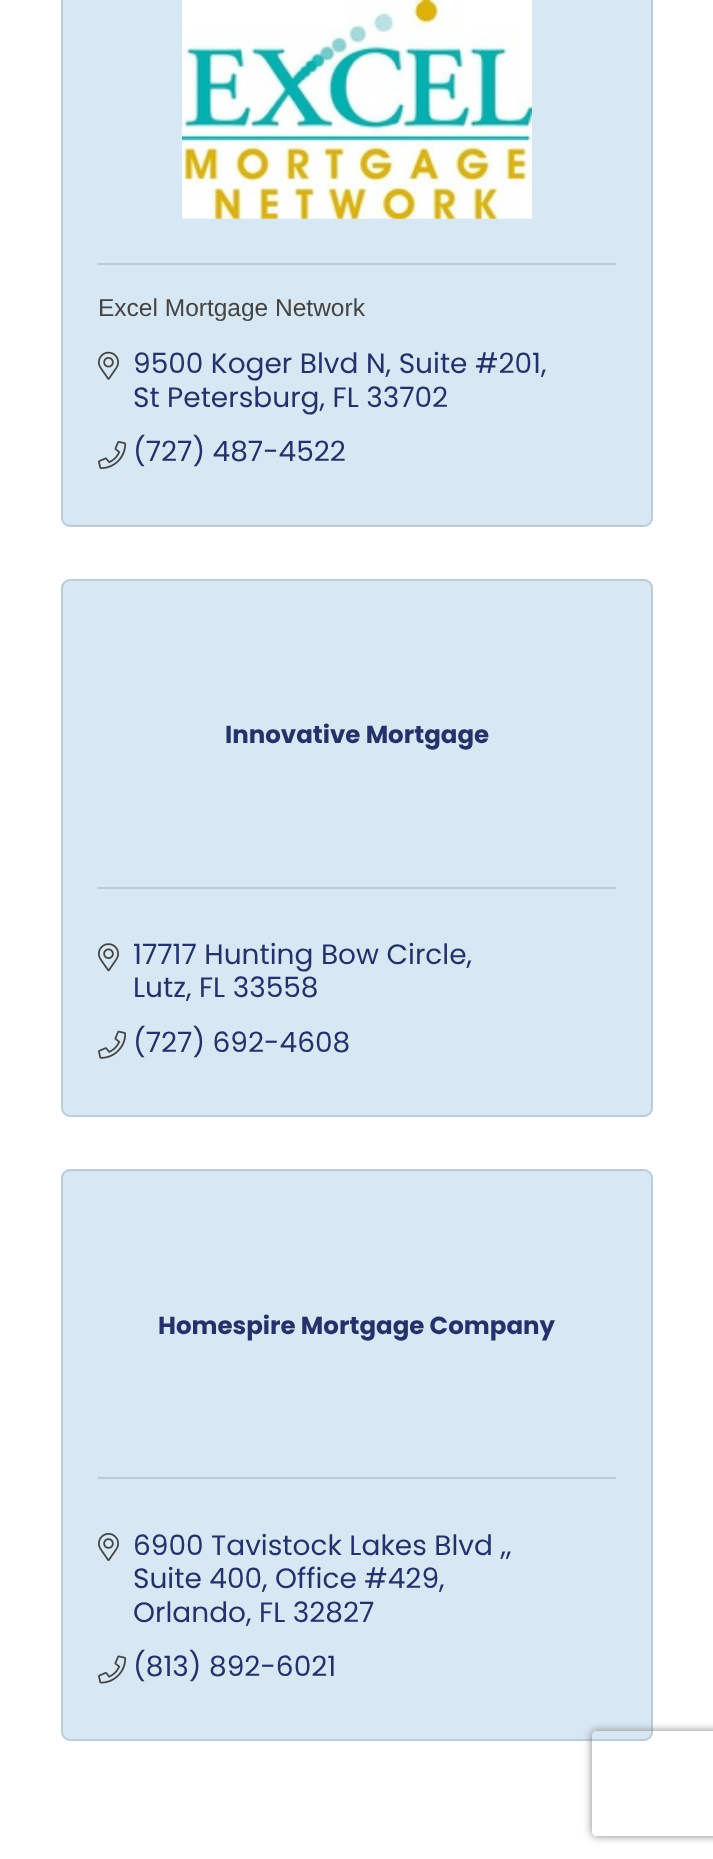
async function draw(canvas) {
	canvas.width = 713;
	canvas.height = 1859;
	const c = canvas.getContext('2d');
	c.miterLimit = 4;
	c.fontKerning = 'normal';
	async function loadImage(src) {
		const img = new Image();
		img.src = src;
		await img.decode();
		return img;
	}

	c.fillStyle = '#fff';
	c.fillRect(0, 0, 713, 1859);
	c.fillStyle = '#d7e7f4';
	c.beginPath();
	c.roundRect(61, -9, 592, 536, 9);
	c.fill();
	c.beginPath();
	c.roundRect(62, -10, 590, 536, 8);
	c.strokeStyle = '#0000001f';
	c.lineWidth = 2;
	c.stroke();
	c.drawImage(await loadImage('img1.png'), 182, 0, 350, 219);
	c.fillStyle = '#bccad6';
	c.fillRect(98, 263, 518, 2);
	c.font = '24.5px Liberation Sans';
	c.fillStyle = '#444';
	c.fillText('Excel Mortgage Network', 98, 316);
	c.drawImage(await loadImage('img2.png'), 98, 351, 21, 29);
	c.font = '28px Poppins';
	c.fillStyle = '#24326a';
	c.fillText('9500 Koger Blvd N, Suite #201,', 133, 373);
	c.fillText('St Petersburg, FL 33702', 133, 407);
	c.drawImage(await loadImage('img3.png'), 98, 441, 29, 28);
	c.fillText('(727) 487-4522', 133, 461);
	c.fillStyle = '#d7e7f4';
	c.beginPath();
	c.roundRect(61, 579, 592, 538, 9);
	c.fill();
	c.beginPath();
	c.roundRect(62, 580, 590, 536, 8);
	c.stroke();
	c.font = 'bold 24.5px Poppins';
	c.fillStyle = '#24326a';
	c.fillText('Innovative Mortgage', 225, 743);
	c.fillStyle = '#bccad6';
	c.fillRect(98, 887, 518, 2);
	c.drawImage(await loadImage('img4.png'), 98, 943, 21, 29);
	c.font = '28px Poppins';
	c.fillStyle = '#24326a';
	c.fillText('17717 Hunting Bow Circle,', 133, 964);
	c.fillText('Lutz, FL 33558', 133, 997);
	c.drawImage(await loadImage('img5.png'), 98, 1030, 28, 29);
	c.fillText('(727) 692-4608', 133, 1052);
	c.fillStyle = '#d7e7f4';
	c.beginPath();
	c.roundRect(61, 1169, 592, 572, 9);
	c.fill();
	c.beginPath();
	c.roundRect(62, 1170, 590, 570, 8);
	c.stroke();
	c.font = 'bold 24.5px Poppins';
	c.fillStyle = '#24326a';
	c.fillText('Homespire Mortgage Company', 158, 1334);
	c.fillStyle = '#bccad6';
	c.fillRect(98, 1477, 518, 2);
	c.drawImage(await loadImage('img6.png'), 98, 1533, 21, 28);
	c.font = '28px Poppins';
	c.fillStyle = '#24326a';
	for (const [text, x, y] of [
		['6900 Tavistock Lakes Blvd ,,', 133, 1555],
		['Suite 400, Office #429,', 133, 1588],
		['Orlando, FL 32827', 133, 1622],
	]) {
		c.fillText(text, x, y);
	}
	c.drawImage(await loadImage('img7.png'), 98, 1655, 29, 29);
	c.fillText('(813) 892-6021', 133, 1676);
	c.save();
	c.beginPath();
	c.moveTo(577, 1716);
	c.lineTo(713, 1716);
	c.lineTo(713, 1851);
	c.lineTo(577, 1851);
	c.closePath();
	c.moveTo(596, 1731);
	c.lineTo(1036, 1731);
	c.bezierCurveTo(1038, 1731, 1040, 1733, 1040, 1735);
	c.lineTo(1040, 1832);
	c.bezierCurveTo(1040, 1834, 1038, 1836, 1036, 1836);
	c.lineTo(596, 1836);
	c.bezierCurveTo(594, 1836, 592, 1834, 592, 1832);
	c.lineTo(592, 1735);
	c.bezierCurveTo(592, 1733, 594, 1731, 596, 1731);
	c.closePath();
	c.clip('evenodd');
	c.fillStyle = '#808080';
	c.filter = 'blur(4.5px)';
	c.beginPath();
	c.roundRect(592, 1731, 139, 105, 4);
	c.fill();
	c.filter = 'none';
	c.restore();
}

draw(document.querySelector('canvas'));
